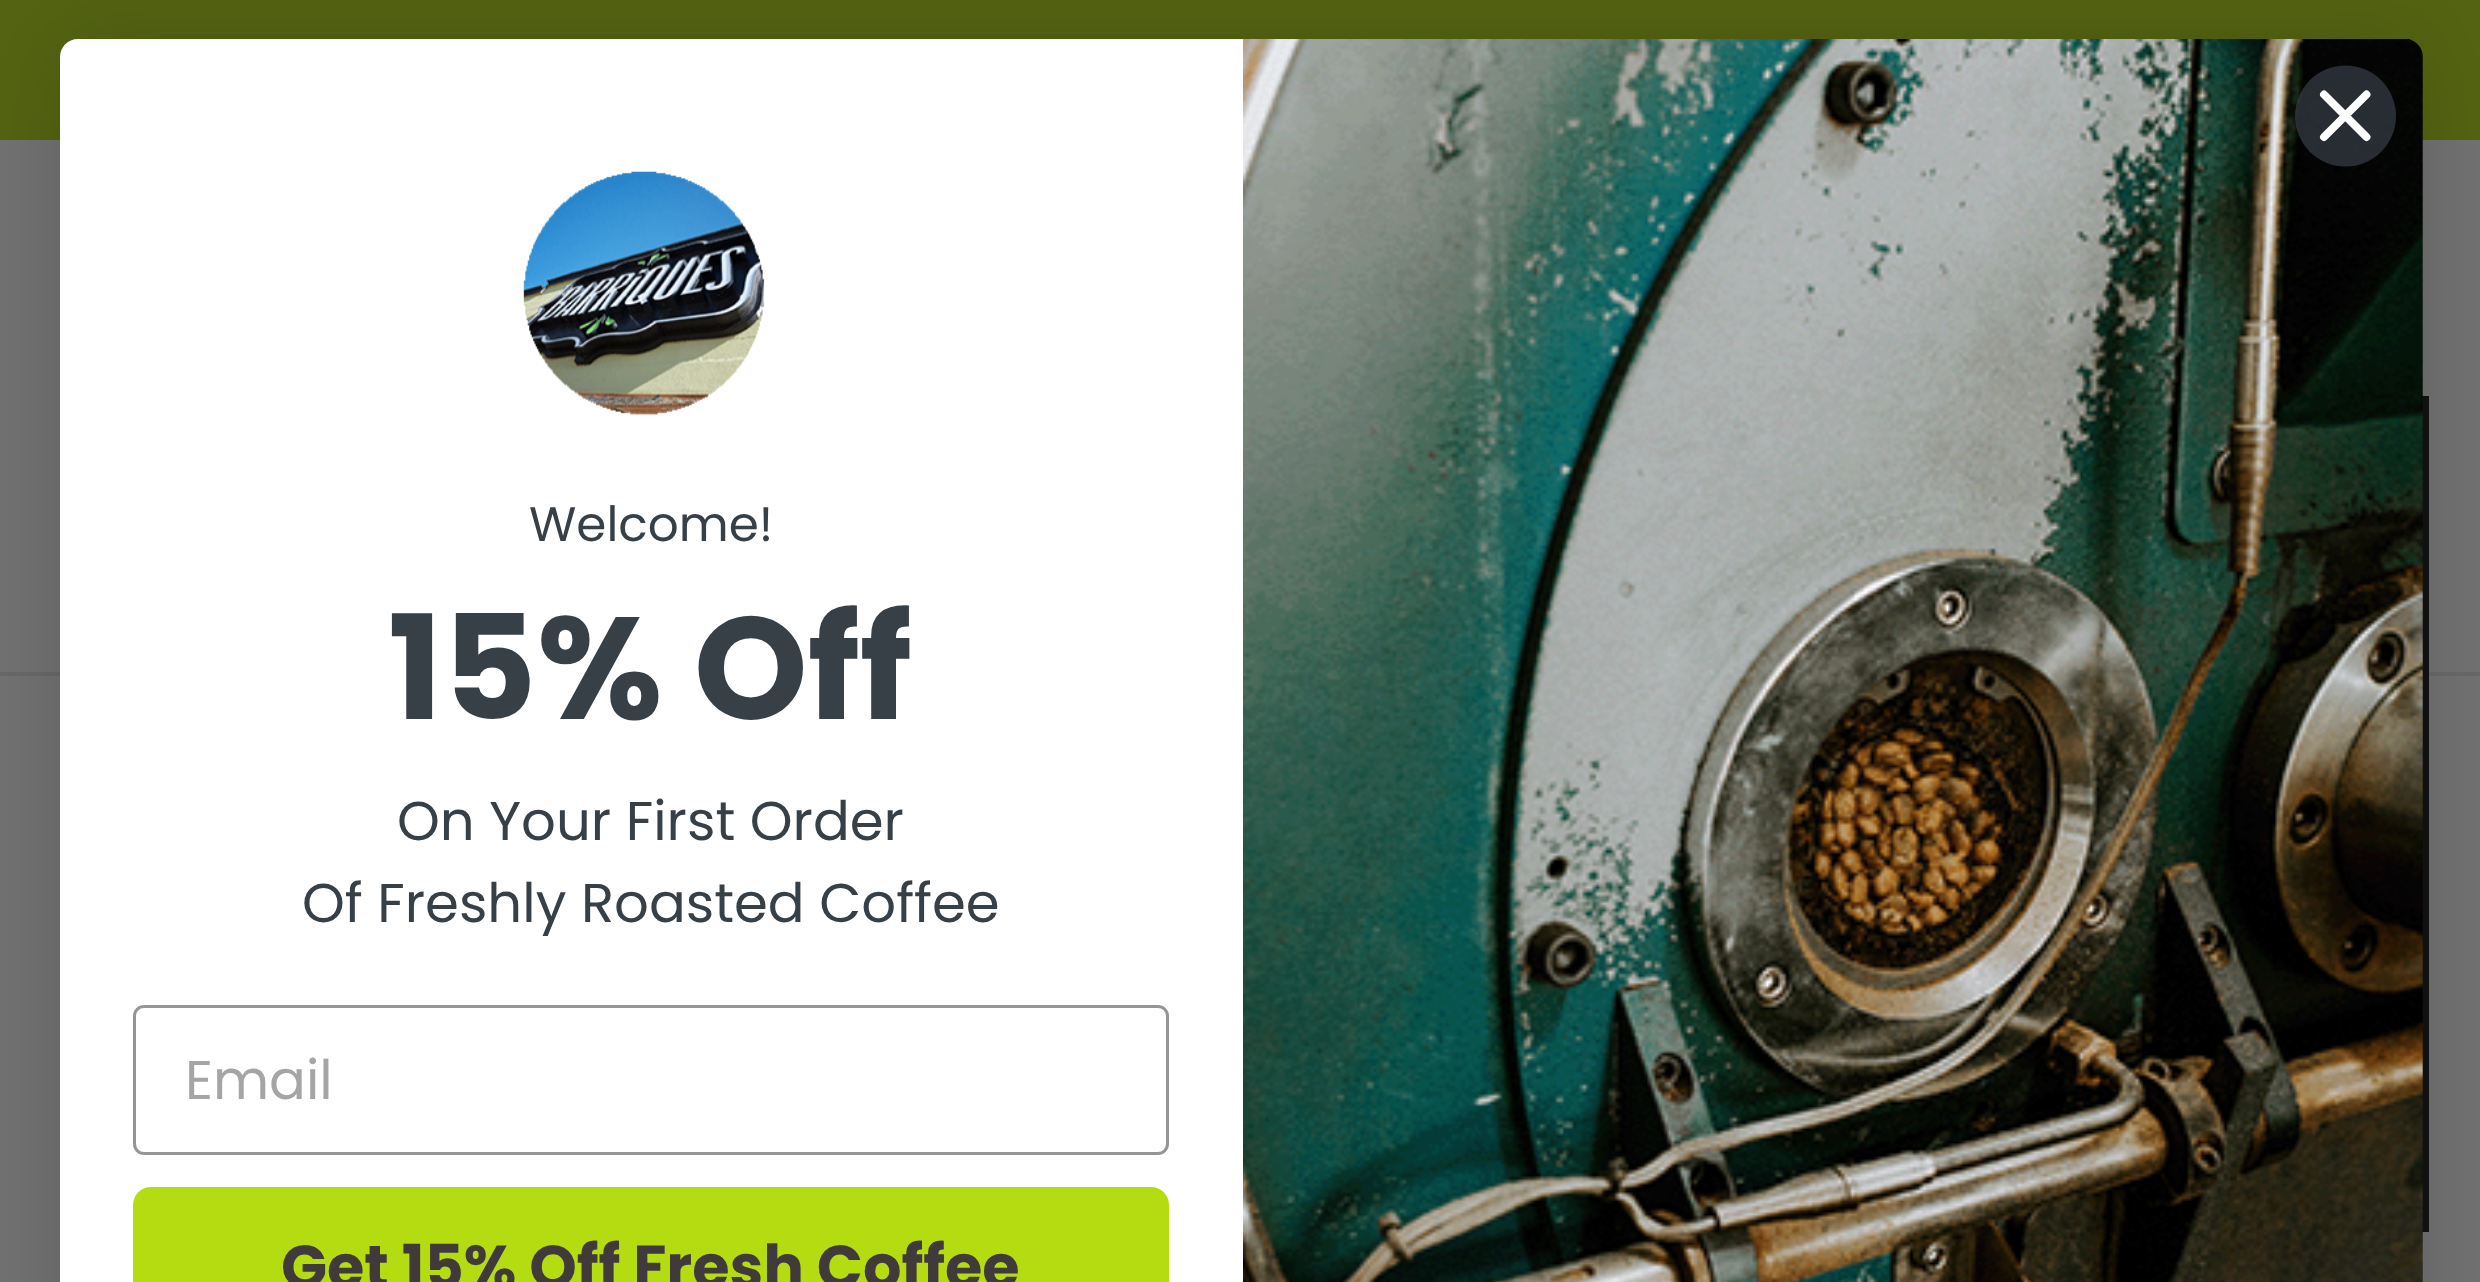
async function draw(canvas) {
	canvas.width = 2480;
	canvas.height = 1282;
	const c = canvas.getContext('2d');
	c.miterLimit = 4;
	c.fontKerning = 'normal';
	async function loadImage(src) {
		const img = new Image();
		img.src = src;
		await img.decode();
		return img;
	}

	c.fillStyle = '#727272';
	c.fillRect(0, 0, 2480, 1282);
	for (const [x, y, w, h, color] of [
		[0, 0, 2480, 140, '#546412'],
		[0, 672, 2480, 4, '#696969'],
		[2422, 396, 7, 836, '#131313'],
	]) {
		c.fillStyle = color;
		c.fillRect(x, y, w, h);
	}
	c.fillStyle = '#00000026';
	c.filter = 'blur(45.5px)';
	c.beginPath();
	c.roundRect(60, 39, 2362, 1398, 18);
	c.fill();
	c.filter = 'none';
	c.fillStyle = '#fff';
	c.beginPath();
	c.moveTo(78, 39);
	c.lineTo(2404, 39);
	c.bezierCurveTo(2414, 39, 2422, 47, 2422, 57);
	c.lineTo(2422, 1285);
	c.lineTo(60, 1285);
	c.lineTo(60, 57);
	c.bezierCurveTo(60, 47, 68, 39, 78, 39);
	c.closePath();
	c.fill();
	c.drawImage(await loadImage('img2.png'), 1243, 39, 1180, 1243);
	c.fillStyle = '#373f47b3';
	c.beginPath();
	c.arc(2345.5, 116, 50.5, 0, 2 * Math.PI);
	c.fill();
	c.beginPath();
	c.moveTo(2324, 94.5);
	c.lineTo(2366.5, 137);
	c.moveTo(2324, 137);
	c.lineTo(2366.5, 94.5);
	c.closePath();
	c.strokeStyle = '#fff';
	c.lineWidth = 7.9;
	c.lineCap = 'round';
	c.lineJoin = 'round';
	c.stroke();
	c.drawImage(await loadImage('img1.png'), 523, 171, 242, 244);
	c.font = '48.5px Poppins';
	c.fillStyle = '#373f47';
	c.fillText('Welcome!', 529, 541);
	c.font = 'bold 145px Poppins';
	c.fillText('15% Off', 388, 719);
	c.font = '54.5px Poppins';
	c.fillText('On Your First Order', 397, 840);
	c.fillText('Of Freshly Roasted Coffee', 302, 922);
	c.beginPath();
	c.roundRect(134.5, 1006.5, 1033, 147, 9.5);
	c.strokeStyle = '#949596';
	c.lineWidth = 3;
	c.lineJoin = 'miter';
	c.stroke();
	c.fillStyle = '#a5a5a5';
	c.fillText('Email', 185, 1099);
	c.fillStyle = '#b5dc10';
	c.beginPath();
	c.moveTo(151, 1187);
	c.lineTo(1151, 1187);
	c.bezierCurveTo(1161, 1187, 1169, 1195, 1169, 1205);
	c.lineTo(1169, 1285);
	c.lineTo(133, 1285);
	c.lineTo(133, 1205);
	c.bezierCurveTo(133, 1195, 141, 1187, 151, 1187);
	c.closePath();
	c.fill();
	c.font = 'bold 60.5px Poppins';
	c.fillStyle = '#413a3a';
	c.fillText('Get 15% Off Fresh Coffee', 281, 1288);
}

draw(document.querySelector('canvas'));
